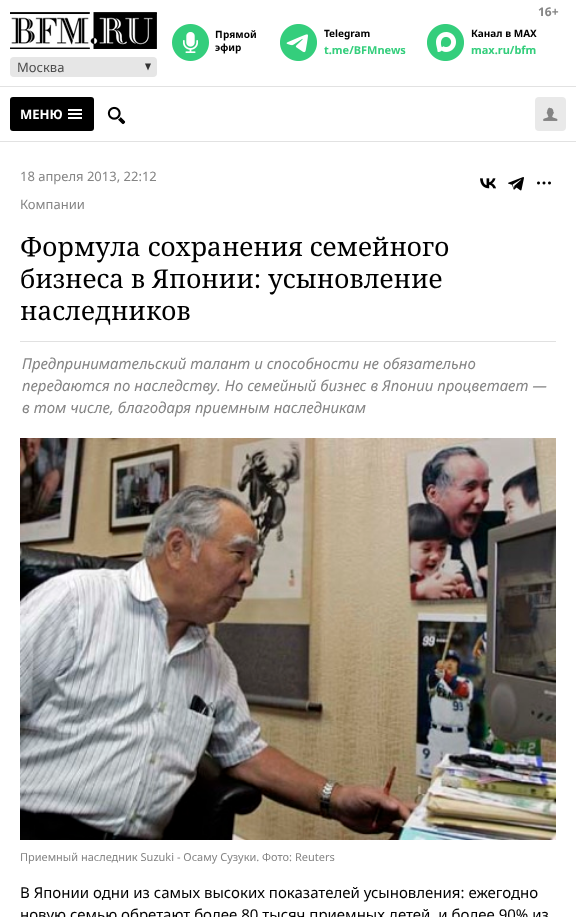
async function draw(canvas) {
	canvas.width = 576;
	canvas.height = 917;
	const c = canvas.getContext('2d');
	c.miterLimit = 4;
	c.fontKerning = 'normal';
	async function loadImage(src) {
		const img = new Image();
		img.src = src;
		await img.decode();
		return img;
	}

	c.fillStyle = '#fff';
	c.fillRect(0, 0, 576, 917);
	c.font = 'bold 12px "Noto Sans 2"';
	c.fillStyle = '#848484';
	c.fillText('16+', 538, 16);
	c.fillStyle = '#e2e2e2';
	c.fillRect(0, 86, 576, 1);
	c.drawImage(await loadImage('img1.png'), 172, 24, 37, 37);
	c.font = 'bold 10px Noto Sans';
	c.fillStyle = '#000';
	c.fillText('П', 215, 38);
	c.font = 'bold 10px "Noto Sans 2"';
	c.fillText('рямой', 223, 38);
	c.fillText('эфир', 215, 51);
	c.drawImage(await loadImage('img2.png'), 280, 24, 37, 37);
	c.fillText('Telegram', 324, 37);
	c.font = 'bold 11px "Noto Sans 2"';
	c.fillStyle = '#34ce7c';
	c.fillText('t.me/BFMnews', 324, 54);
	c.drawImage(await loadImage('img3.png'), 427, 24, 37, 37);
	c.font = 'bold 10px "Noto Sans 2"';
	c.fillStyle = '#000';
	c.fillText('Канал в MAX', 471, 37);
	c.font = 'bold 11px "Noto Sans 2"';
	c.fillStyle = '#34ce7c';
	c.fillText('max.ru/bfm', 471, 54);
	c.drawImage(await loadImage('img4.png'), 10, 12, 147, 37);
	c.fillStyle = '#e6e6e6';
	c.beginPath();
	c.roundRect(10, 57, 147, 20, 4);
	c.fill();
	c.font = '13px Noto Sans';
	c.fillStyle = '#4c4c4c';
	c.fillText('Москва', 17, 72);
	c.fillStyle = '#333';
	c.beginPath();
	c.moveTo(145, 63.5);
	c.lineTo(151, 63.5);
	c.lineTo(148, 70.5);
	c.closePath();
	c.fill();
	c.fillStyle = '#e2e2e2';
	c.fillRect(0, 141, 576, 1);
	c.fillStyle = '#000';
	c.beginPath();
	c.roundRect(10, 97, 84, 34, 3);
	c.fill();
	c.font = 'bold 13px "Noto Sans 2"';
	c.fillStyle = '#fff';
	c.fillText('МЕНЮ', 20, 119);
	c.drawImage(await loadImage('img5.png'), 68, 109, 14, 10);
	c.drawImage(await loadImage('img6.png'), 107, 106, 19, 19);
	c.fillStyle = '#e9e9e9';
	c.beginPath();
	c.roundRect(535, 97, 31, 34, 4);
	c.fill();
	c.drawImage(await loadImage('img7.png'), 543, 107, 15, 14);
	c.font = '13px Noto Sans';
	c.fillStyle = '#848484';
	c.fillText('18 апреля 2013, 22:12', 20, 181);
	c.fillText('Компании', 20, 209);
	c.drawImage(await loadImage('img8.png'), 480, 178, 16, 11);
	c.drawImage(await loadImage('img9.png'), 508, 177, 16, 14);
	c.drawImage(await loadImage('img10.png'), 537, 181, 14, 4);
	c.fillStyle = '#e1e1e1';
	c.fillRect(20, 341, 536, 1);
	c.font = '26px Noto Serif';
	c.fillStyle = '#000';
	for (const [text, x, y] of [
		['Формула сохранения семейного', 20, 256],
		['бизнеса в Японии: усыновление', 20, 288],
		['наследников', 20, 320],
	]) {
		c.fillText(text, x, y);
	}
	c.font = 'italic 15px Noto Sans';
	c.fillStyle = '#848484';
	for (const [text, x, y] of [
		['Предпринимательский талант и способности не обязательно', 22, 369],
		['передаются по наследству. Но семейный бизнес в Японии процветает —', 22, 391],
		['в том числе, благодаря приемным наследникам', 22, 413],
	]) {
		c.fillText(text, x, y);
	}
	c.drawImage(await loadImage('img11.png'), 20, 438, 536, 402);
	c.font = '11px Noto Sans';
	c.fillText('Приемный наследник Suzuki - Осаму Сузуки. Фото: Reuters', 20, 861);
	c.font = '15px Noto Sans';
	c.fillStyle = '#000';
	c.fillText('В Японии одни из самых высоких показателей усыновления: ежегодно', 20, 898);
	c.fillText('новую семью обретают более 80 тысяч приемных детей, и более 90% из', 20, 920);
}

draw(document.querySelector('canvas'));
